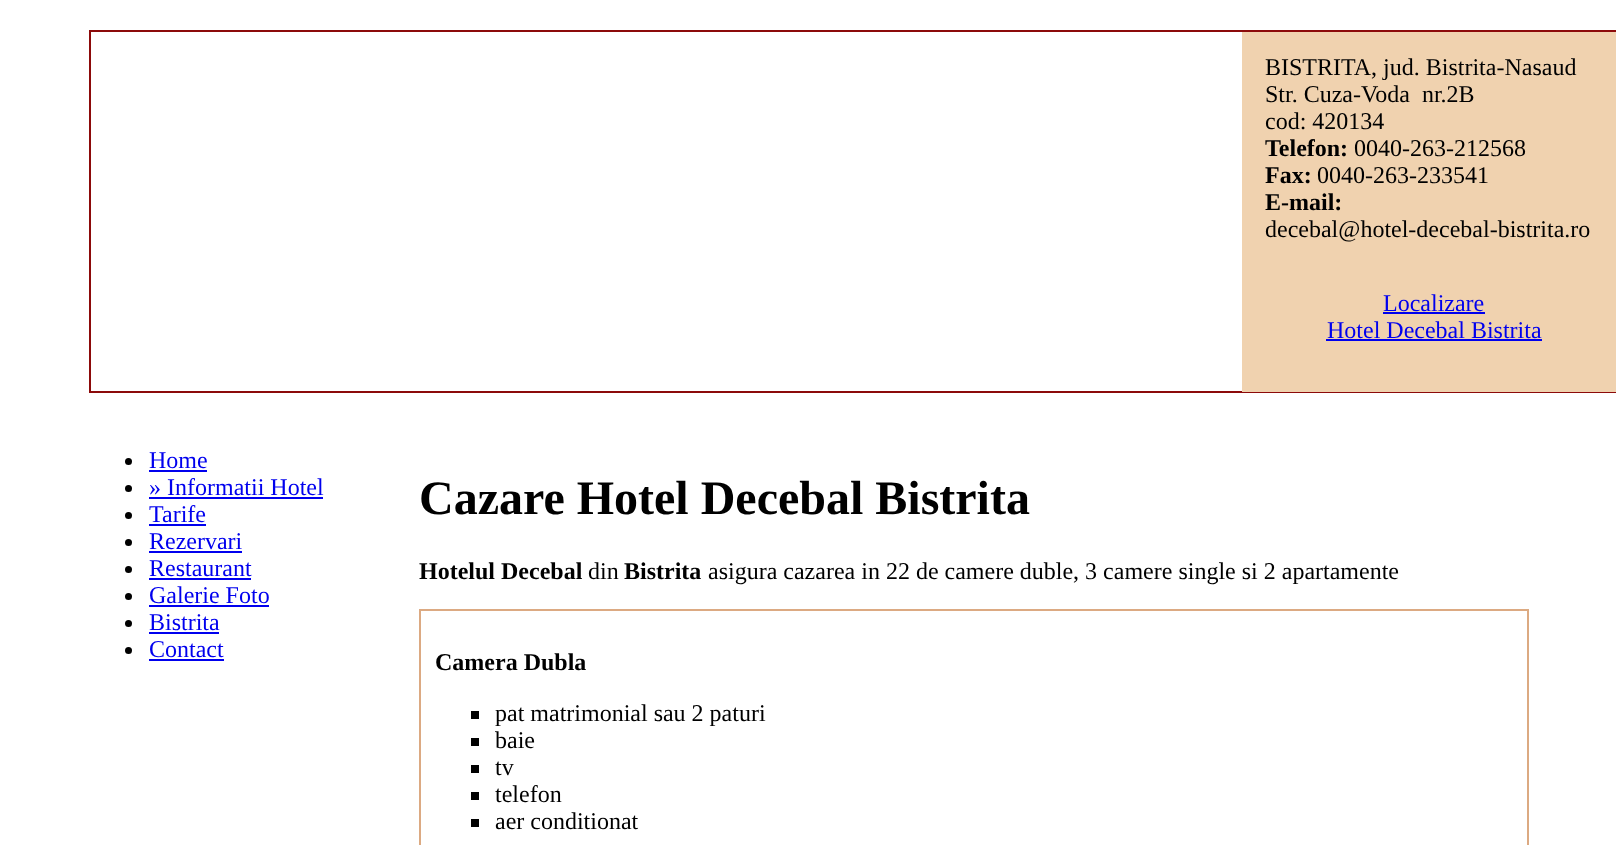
async function draw(canvas) {
	canvas.width = 1616;
	canvas.height = 845;
	const c = canvas.getContext('2d');
	c.miterLimit = 4;
	c.fontKerning = 'normal';

	c.fillStyle = '#fff';
	c.fillRect(0, 0, 1616, 845);
	c.strokeStyle = '#8c0a0a';
	c.lineWidth = 2;
	c.strokeRect(90, 31, 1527, 361);
	c.fillStyle = '#f0d2af';
	c.fillRect(1242, 32, 374, 360);
	c.font = '24px Liberation Serif';
	c.fillStyle = '#000';
	for (const [text, x, y] of [
		['BISTRITA, jud. Bistrita-Nasaud', 1265, 75],
		['Str. Cuza-Voda  nr.2B', 1265, 102],
		['cod: 420134', 1265, 129],
	]) {
		c.fillText(text, x, y);
	}
	c.font = 'bold 24px Liberation Serif';
	c.fillText('Telefon:', 1265, 156);
	c.font = '24px Liberation Serif';
	c.fillText('0040-263-212568', 1354, 156);
	c.font = 'bold 24px Liberation Serif';
	c.fillText('Fax:', 1265, 183);
	c.font = '24px Liberation Serif';
	c.fillText('0040-263-233541', 1317, 183);
	c.font = 'bold 24px Liberation Serif';
	c.fillText('E-mail:', 1265, 210);
	c.font = '24px Liberation Serif';
	c.fillText('decebal@hotel-decebal-bistrita.ro', 1265, 237);
	c.fillStyle = '#00e';
	c.fillText('Localizare', 1383, 311);
	c.fillRect(1383, 312, 102, 2);
	c.fillText('Hotel Decebal Bistrita', 1327, 338);
	c.fillRect(1326, 339, 216, 2);
	c.fillStyle = '#000';
	c.beginPath();
	c.arc(128.5, 461.5, 3.5, 0, 2 * Math.PI);
	c.fill();
	c.fillStyle = '#00e';
	c.fillText('Home', 149, 468);
	c.fillRect(149, 470, 58, 2);
	c.fillStyle = '#000';
	c.beginPath();
	c.arc(128.5, 488.5, 3.5, 0, 2 * Math.PI);
	c.fill();
	c.fillStyle = '#00e';
	c.fillText('» Informatii Hotel', 149, 495);
	c.fillRect(149, 497, 174, 2);
	c.fillStyle = '#000';
	c.beginPath();
	c.arc(128.5, 515.5, 3.5, 0, 2 * Math.PI);
	c.fill();
	c.fillStyle = '#00e';
	c.fillText('Tarife', 149, 522);
	c.fillRect(149, 524, 57, 2);
	c.fillStyle = '#000';
	c.beginPath();
	c.arc(128.5, 542.5, 3.5, 0, 2 * Math.PI);
	c.fill();
	c.fillStyle = '#00e';
	c.fillText('Rezervari', 149, 549);
	c.fillRect(149, 551, 93, 2);
	c.fillStyle = '#000';
	c.beginPath();
	c.arc(128.5, 569.5, 3.5, 0, 2 * Math.PI);
	c.fill();
	c.fillStyle = '#00e';
	c.fillText('Restaurant', 149, 576);
	c.fillRect(149, 578, 102, 2);
	c.fillStyle = '#000';
	c.beginPath();
	c.arc(128.5, 596.5, 3.5, 0, 2 * Math.PI);
	c.fill();
	c.fillStyle = '#00e';
	c.fillText('Galerie Foto', 149, 603);
	c.fillRect(149, 605, 120, 2);
	c.fillStyle = '#000';
	c.beginPath();
	c.arc(128.5, 623.5, 3.5, 0, 2 * Math.PI);
	c.fill();
	c.fillStyle = '#00e';
	c.fillText('Bistrita', 149, 630);
	c.fillRect(149, 632, 70, 2);
	c.fillStyle = '#000';
	c.beginPath();
	c.arc(128.5, 650.5, 3.5, 0, 2 * Math.PI);
	c.fill();
	c.fillStyle = '#00e';
	c.fillText('Contact', 149, 657);
	c.fillRect(149, 659, 75, 2);
	c.font = 'bold 48px Liberation Serif';
	c.fillStyle = '#000';
	c.fillText('Cazare Hotel Decebal Bistrita', 419, 514);
	c.font = 'bold 24px Liberation Serif';
	c.fillText('Hotelul Decebal', 419, 579);
	c.font = '24px Liberation Serif';
	c.fillText('din', 588, 579);
	c.font = 'bold 24px Liberation Serif';
	c.fillText('Bistrita', 624, 579);
	c.font = '24px Liberation Serif';
	c.fillText('asigura cazarea in 22 de camere duble, 3 camere single si 2 apartamente', 708, 579);
	c.strokeStyle = '#dcaa82';
	c.strokeRect(420, 610, 1108, 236);
	c.font = 'bold 24px Liberation Serif';
	c.fillText('Camera Dubla', 435, 670);
	c.fillRect(471, 711, 8, 8);
	c.font = '24px Liberation Serif';
	c.fillText('pat matrimonial sau 2 paturi', 495, 721);
	c.fillRect(471, 738, 8, 8);
	c.fillText('baie', 495, 748);
	c.fillRect(471, 765, 8, 8);
	c.fillText('tv', 495, 775);
	c.fillRect(471, 792, 8, 8);
	c.fillText('telefon', 495, 802);
	c.fillRect(471, 819, 8, 8);
	c.fillText('aer conditionat', 495, 829);
}

draw(document.querySelector('canvas'));
